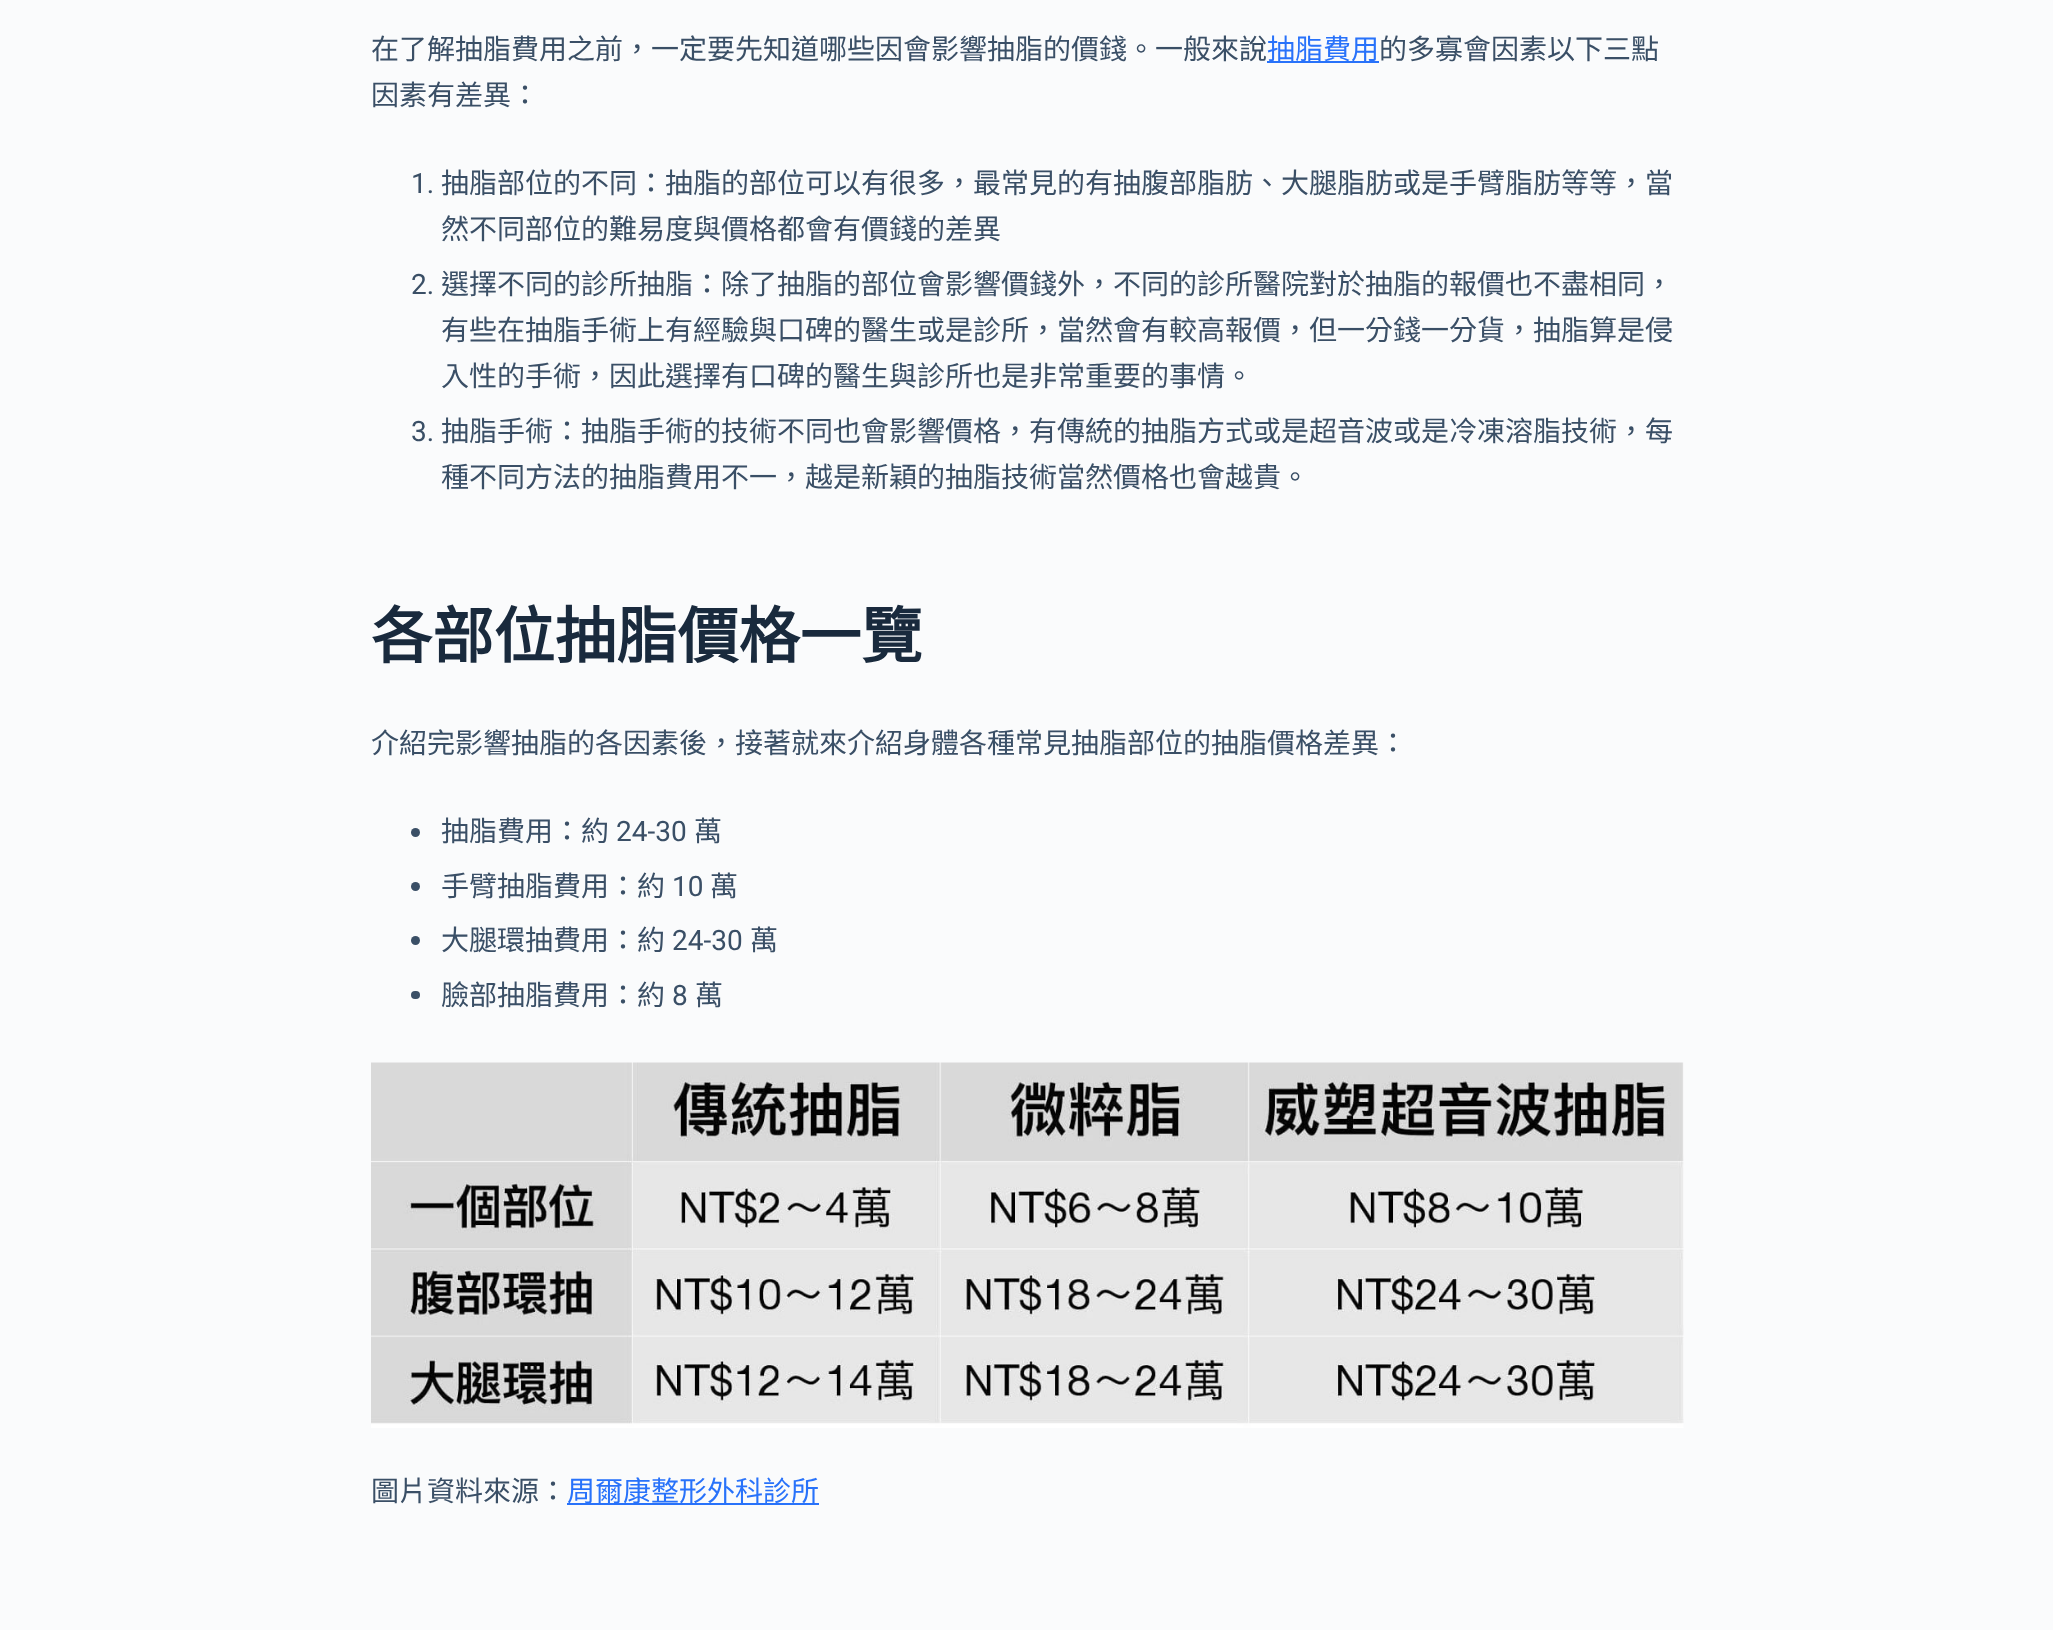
async function draw(canvas) {
	canvas.width = 2053;
	canvas.height = 1630;
	const c = canvas.getContext('2d');
	c.miterLimit = 4;
	c.fontKerning = 'normal';
	async function loadImage(src) {
		const img = new Image();
		img.src = src;
		await img.decode();
		return img;
	}

	c.fillStyle = '#fafbfc';
	c.fillRect(0, 0, 2053, 1630);
	c.font = '28px Noto Sans CJK TC';
	c.fillStyle = '#3a4f66';
	c.fillText('在了解抽脂費用之前，一定要先知道哪些因會影響抽脂的價錢。一般來說', 371, 59);
	c.fillStyle = '#2872fa';
	c.fillRect(1267, 61, 112, 2);
	c.fillText('抽脂費用', 1267, 59);
	c.fillStyle = '#3a4f66';
	c.fillText('的多寡會因素以下三點', 1379, 59);
	c.fillText('因素有差異：', 371, 105);
	c.font = '28px Roboto';
	c.fillText('1.', 411, 193);
	c.font = '28px Noto Sans CJK TC';
	c.fillText('抽脂部位的不同：抽脂的部位可以有很多，最常見的有抽腹部脂肪、大腿脂肪或是手臂脂肪等等，當', 441, 193);
	c.fillText('然不同部位的難易度與價格都會有價錢的差異', 441, 239);
	c.font = '28px Roboto';
	c.fillText('2.', 411, 294);
	c.font = '28px Noto Sans CJK TC';
	for (const [text, x, y] of [
		['選擇不同的診所抽脂：除了抽脂的部位會影響價錢外，不同的診所醫院對於抽脂的報價也不盡相同，', 441, 294],
		['有些在抽脂手術上有經驗與口碑的醫生或是診所，當然會有較高報價，但一分錢一分貨，抽脂算是侵', 441, 340],
		['入性的手術，因此選擇有口碑的醫生與診所也是非常重要的事情。', 441, 386],
	]) {
		c.fillText(text, x, y);
	}
	c.font = '28px Roboto';
	c.fillText('3.', 411, 441);
	c.font = '28px Noto Sans CJK TC';
	c.fillText('抽脂手術：抽脂手術的技術不同也會影響價格，有傳統的抽脂方式或是超音波或是冷凍溶脂技術，每', 441, 441);
	c.fillText('種不同方法的抽脂費用不一，越是新穎的抽脂技術當然價格也會越貴。', 441, 487);
	c.font = 'bold 61.25px Noto Sans CJK TC';
	c.fillStyle = '#192a3d';
	c.fillText('各部位抽脂價格一覽', 371, 658);
	c.font = '28px Noto Sans CJK TC';
	c.fillStyle = '#3a4f66';
	c.fillText('介紹完影響抽脂的各因素後，接著就來介紹身體各種常見抽脂部位的抽脂價格差異：', 371, 753);
	c.beginPath();
	c.arc(415.5, 832.5, 4.5, 0, 2 * Math.PI);
	c.fill();
	c.fillText('抽脂費用：約', 441, 841);
	c.font = '28px Roboto';
	c.fillText('24-30', 616, 841);
	c.font = '28px Noto Sans CJK TC';
	c.fillText('萬', 694, 841);
	c.beginPath();
	c.arc(415.5, 886.5, 4.5, 0, 2 * Math.PI);
	c.fill();
	c.fillText('手臂抽脂費用：約', 441, 896);
	c.font = '28px Roboto';
	c.fillText('10', 672, 896);
	c.font = '28px Noto Sans CJK TC';
	c.fillText('萬', 710, 896);
	c.beginPath();
	c.arc(415.5, 940.5, 4.5, 0, 2 * Math.PI);
	c.fill();
	c.fillText('大腿環抽費用：約', 441, 950);
	c.font = '28px Roboto';
	c.fillText('24-30', 672, 950);
	c.font = '28px Noto Sans CJK TC';
	c.fillText('萬', 750, 950);
	c.beginPath();
	c.roundRect(411, 991, 9, 8, 4);
	c.fill();
	c.fillText('臉部抽脂費用：約', 441, 1005);
	c.font = '28px Roboto';
	c.fillText('8', 672, 1005);
	c.font = '28px Noto Sans CJK TC';
	c.fillText('萬', 695, 1005);
	c.drawImage(await loadImage('img1.png'), 371, 1062, 1313, 366);
	c.fillText('圖片資料來源：', 371, 1501);
	c.fillStyle = '#2872fa';
	c.fillRect(567, 1503, 252, 2);
	c.fillText('周爾康整形外科診所', 567, 1501);
}

draw(document.querySelector('canvas'));
